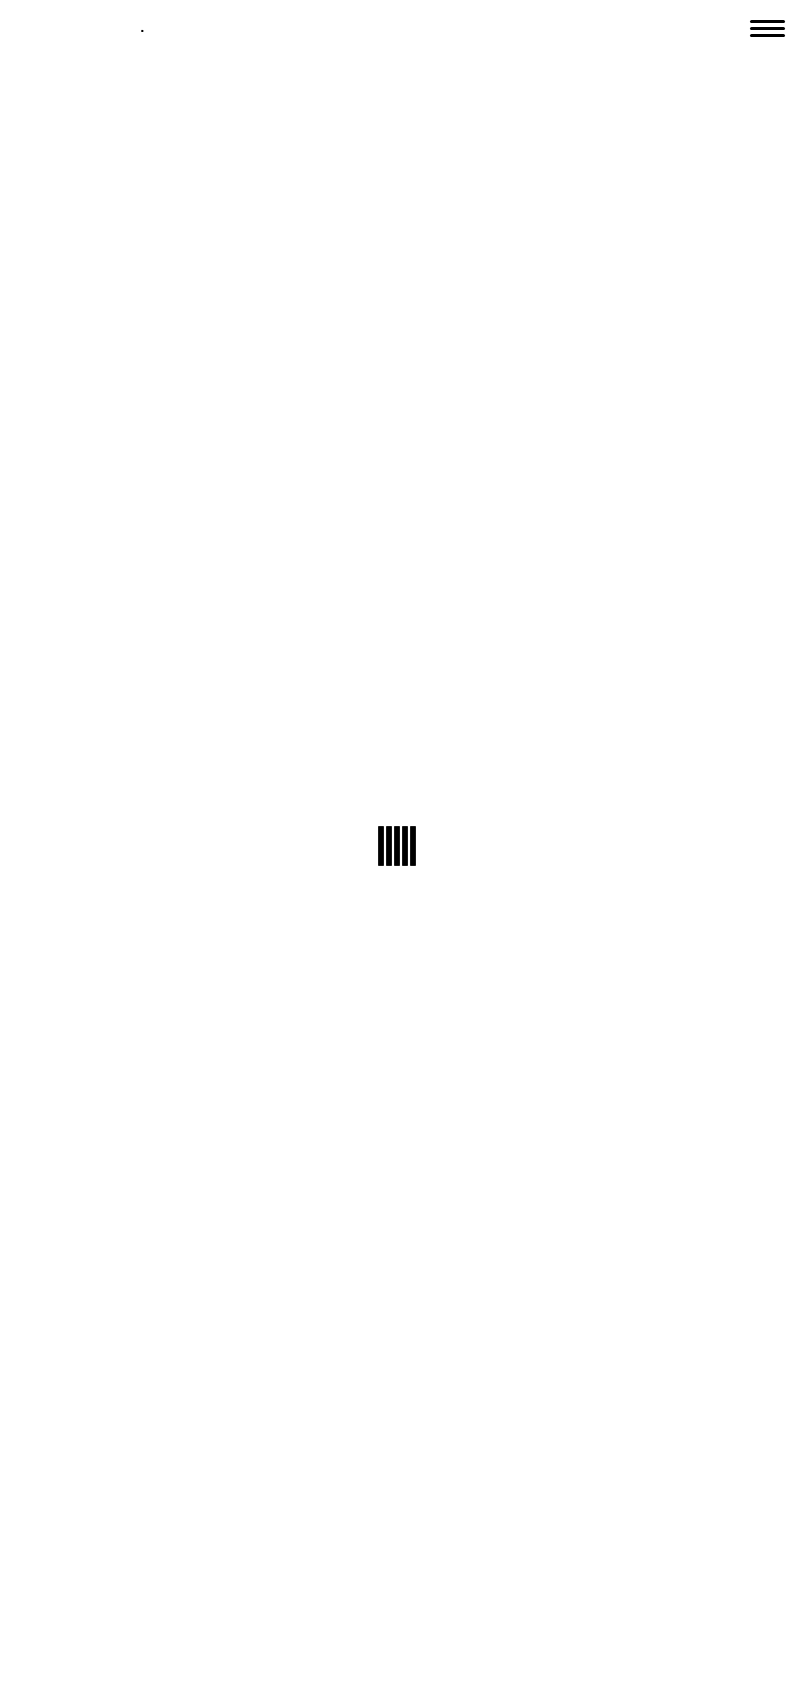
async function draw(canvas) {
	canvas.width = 794;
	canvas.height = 1691;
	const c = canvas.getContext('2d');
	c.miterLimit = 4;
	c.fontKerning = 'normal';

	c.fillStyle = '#fff';
	c.fillRect(0, 0, 794, 1691);
	c.font = '20px Muli';
	c.fillStyle = '#000';
	c.fillText('.', 140, 32);
	c.beginPath();
	c.roundRect(750, 27, 35, 3, 1.5);
	c.fill();
	c.beginPath();
	c.roundRect(750, 20, 35, 3, 1.5);
	c.fill();
	c.beginPath();
	c.roundRect(750, 34, 35, 3, 1.5);
	c.fill();
	c.beginPath();
	c.rect(378.5, 826.5, 5, 39);
	c.fill();
	c.strokeStyle = '#1a1a1a';
	c.stroke();
	c.beginPath();
	c.rect(386.5, 826.5, 5, 39);
	c.fill();
	c.stroke();
	c.beginPath();
	c.rect(394.5, 826.5, 5, 39);
	c.fill();
	c.stroke();
	c.beginPath();
	c.rect(402.5, 826.5, 5, 39);
	c.fill();
	c.stroke();
	c.beginPath();
	c.rect(410.5, 826.5, 5, 39);
	c.fill();
	c.stroke();
}

draw(document.querySelector('canvas'));
